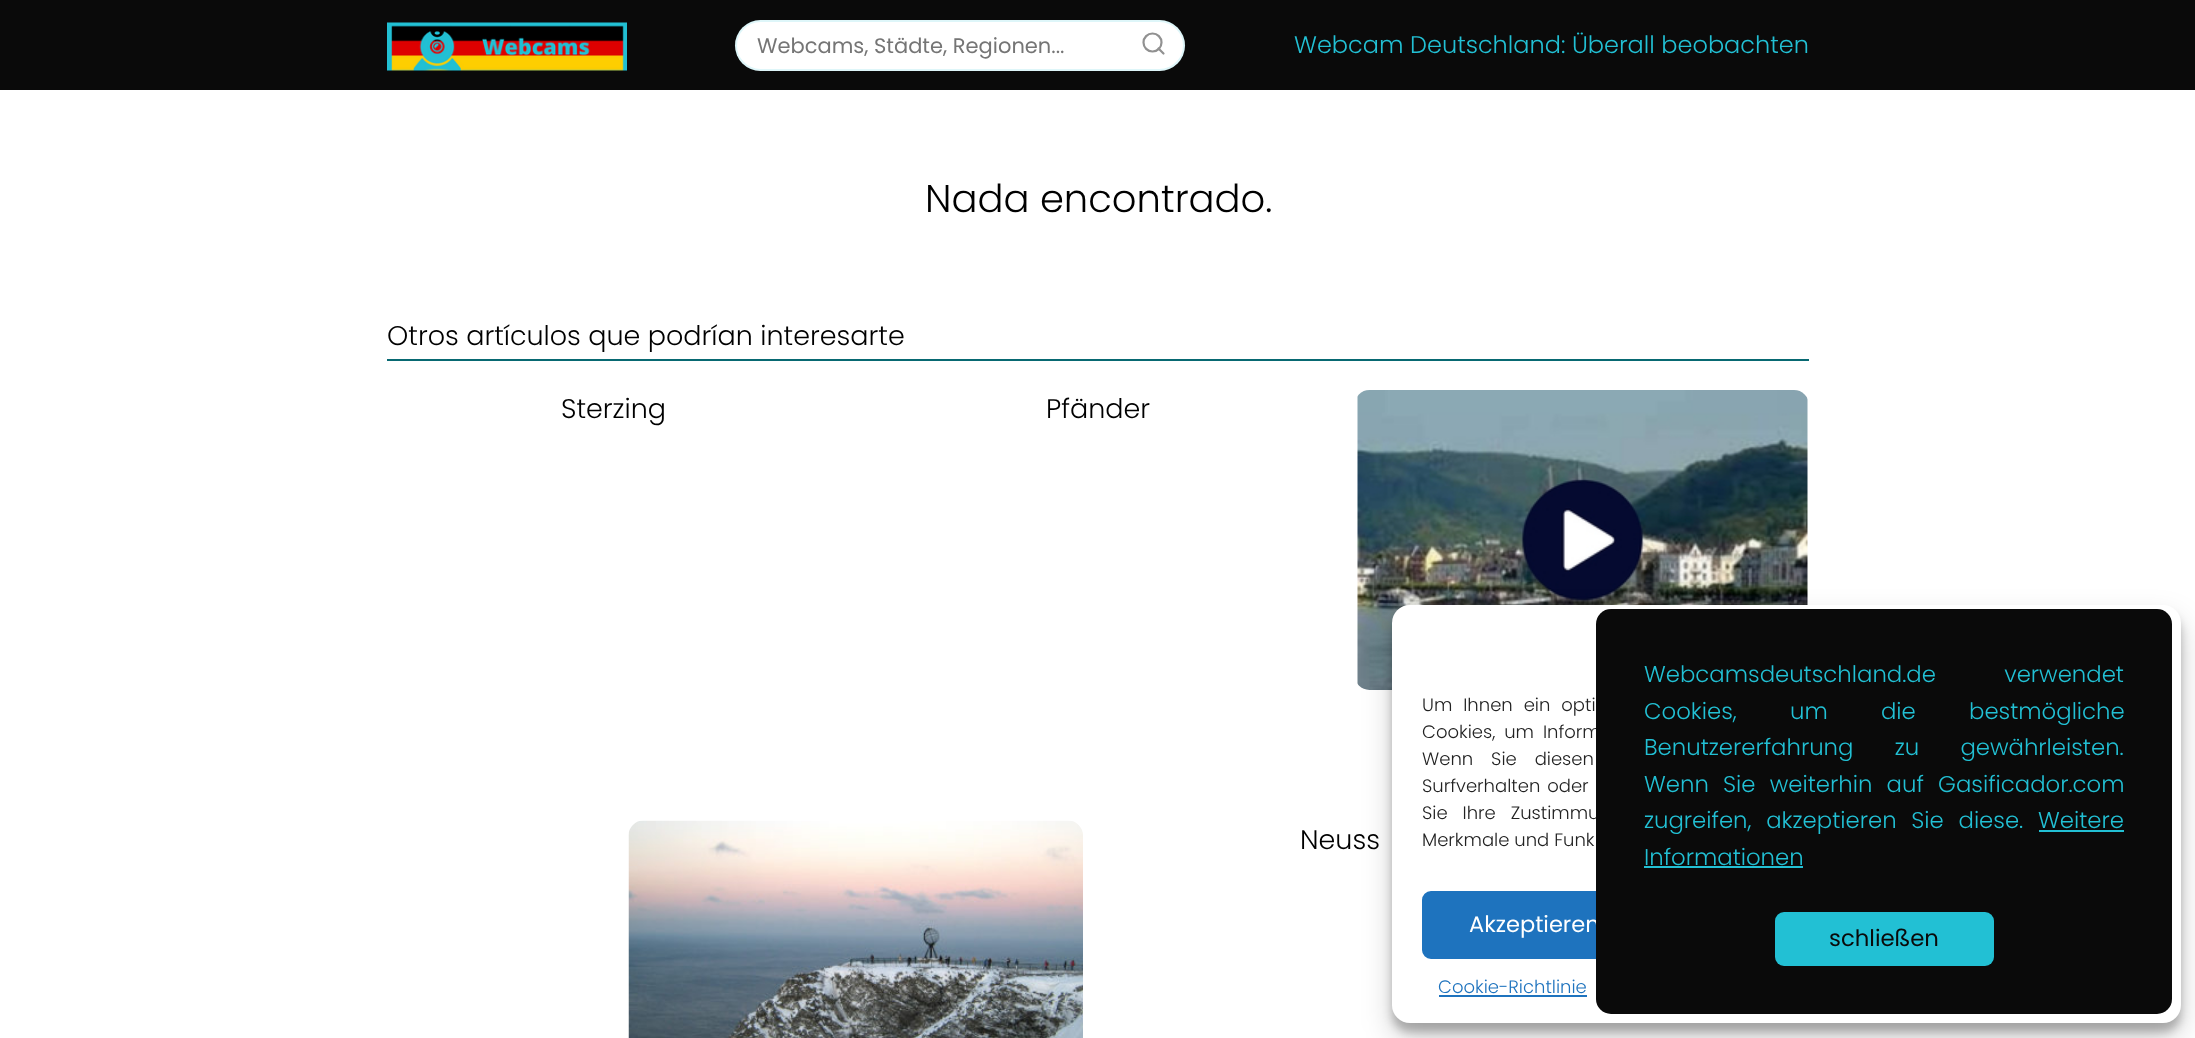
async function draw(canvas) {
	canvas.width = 2195;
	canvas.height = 1038;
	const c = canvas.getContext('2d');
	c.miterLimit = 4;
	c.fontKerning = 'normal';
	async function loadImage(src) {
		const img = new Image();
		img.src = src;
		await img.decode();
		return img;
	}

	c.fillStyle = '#fff';
	c.fillRect(0, 0, 2195, 1038);
	c.fillStyle = '#0a0a0a';
	c.fillRect(0, 0, 2195, 90);
	c.drawImage(await loadImage('img1.png'), 387, 22, 240, 49);
	c.fillStyle = '#fff';
	c.beginPath();
	c.roundRect(735, 20, 450, 51, 25.5);
	c.fill();
	c.beginPath();
	c.roundRect(736, 21, 448, 49, 24.5);
	c.strokeStyle = '#22c0d426';
	c.lineWidth = 2;
	c.stroke();
	c.font = '21px Poppins';
	c.fillStyle = '#757575';
	c.fillText('Webcams, Städte, Regionen...', 757, 53);
	c.beginPath();
	c.arc(1152.5, 42.5, 9, 0, 2 * Math.PI);
	c.strokeStyle = '#919191';
	c.lineWidth = 2.2;
	c.stroke();
	c.beginPath();
	c.moveTo(1163.5, 53.5);
	c.lineTo(1158.5, 48.5);
	c.lineCap = 'round';
	c.lineJoin = 'round';
	c.stroke();
	c.font = '300 24px Poppins';
	c.fillStyle = '#22c0d4';
	c.fillText('Webcam Deutschland: Überall beobachten', 1294, 53);
	c.font = '300 38.5px Poppins';
	c.fillStyle = '#000';
	c.fillText('Nada encontrado.', 925, 212);
	c.fillStyle = '#086972';
	c.fillRect(387, 359, 1422, 2);
	c.font = '300 27px Poppins';
	c.fillStyle = '#000';
	for (const [text, x, y] of [
		['Otros artículos que podrían interesarte', 387, 345],
		['Sterzing', 561, 418],
		['Pfänder', 1046, 418],
	]) {
		c.fillText(text, x, y);
	}
	c.drawImage(await loadImage('img2.png'), 1357, 390, 451, 300);
	c.drawImage(await loadImage('img3.png'), 628, 820, 455, 218);
	c.fillText('Neuss', 1300, 849);
	c.fillStyle = '#0000003b';
	c.filter = 'blur(4.5px)';
	c.beginPath();
	c.roundRect(1392, 614, 789, 418, 18);
	c.fill();
	c.filter = 'none';
	c.fillStyle = '#00000030';
	c.filter = 'blur(15px)';
	c.beginPath();
	c.roundRect(1392, 620, 789, 418, 18);
	c.fill();
	c.filter = 'none';
	c.fillStyle = '#fff';
	c.beginPath();
	c.roundRect(1392, 605, 789, 418, 18);
	c.fill();
	c.wordSpacing = '6px';
	c.font = '300 18px Poppins';
	c.fillStyle = '#222';
	c.fillText('Um Ihnen ein opti', 1422, 711);
	c.wordSpacing = '4px';
	c.fillText('Cookies, um Inform', 1422, 738);
	c.wordSpacing = '13px';
	c.fillText('Wenn Sie diesen', 1422, 765);
	c.wordSpacing = '2px';
	c.fillText('Surfverhalten oder', 1422, 792);
	c.wordSpacing = '10px';
	c.fillText('Sie Ihre Zustimmu', 1422, 819);
	c.wordSpacing = '0px';
	c.fillText('Merkmale und Funk', 1422, 846);
	c.fillStyle = '#1e73be';
	c.beginPath();
	c.roundRect(1423, 892, 223, 66, 8);
	c.fill();
	c.strokeStyle = '#1e73be';
	c.lineWidth = 2;
	c.lineJoin = 'miter';
	c.stroke();
	c.font = '22.5px Poppins';
	c.fillStyle = '#fff';
	c.fillText('Akzeptieren', 1469, 932);
	c.font = '300 18px Poppins';
	c.fillStyle = '#1e73be';
	c.fillText('Cookie-Richtlinie', 1438, 993);
	c.fillRect(1439, 995, 148, 2);
	c.fillStyle = '#0a0a0a';
	c.beginPath();
	c.roundRect(1596, 609, 576, 405, 15);
	c.fill();
	c.wordSpacing = '62px';
	c.font = '300 22.8px Poppins';
	c.fillStyle = '#22c0d4';
	c.fillText('Webcamsdeutschland.de verwendet', 1644, 682);
	c.wordSpacing = '47px';
	c.fillText('Cookies, um die bestmögliche', 1644, 719);
	c.wordSpacing = '35px';
	c.fillText('Benutzererfahrung zu gewährleisten.', 1644, 755);
	c.wordSpacing = '8px';
	c.fillText('Wenn Sie weiterhin auf Gasificador.com', 1644, 792);
	c.wordSpacing = '8.5px';
	c.fillText('zugreifen, akzeptieren Sie diese.', 1644, 828);
	c.wordSpacing = '0px';
	c.fillText('Weitere', 2038, 828);
	c.fillRect(2039, 830, 85, 2);
	c.fillText('Informationen', 1644, 865);
	c.fillRect(1644, 866, 159, 2);
	c.beginPath();
	c.roundRect(1775, 912, 219, 54, 9);
	c.fill();
	c.font = '22.8px Poppins';
	c.fillStyle = '#0a0a0a';
	c.fillText('schließen', 1829, 946);
}

draw(document.querySelector('canvas'));
